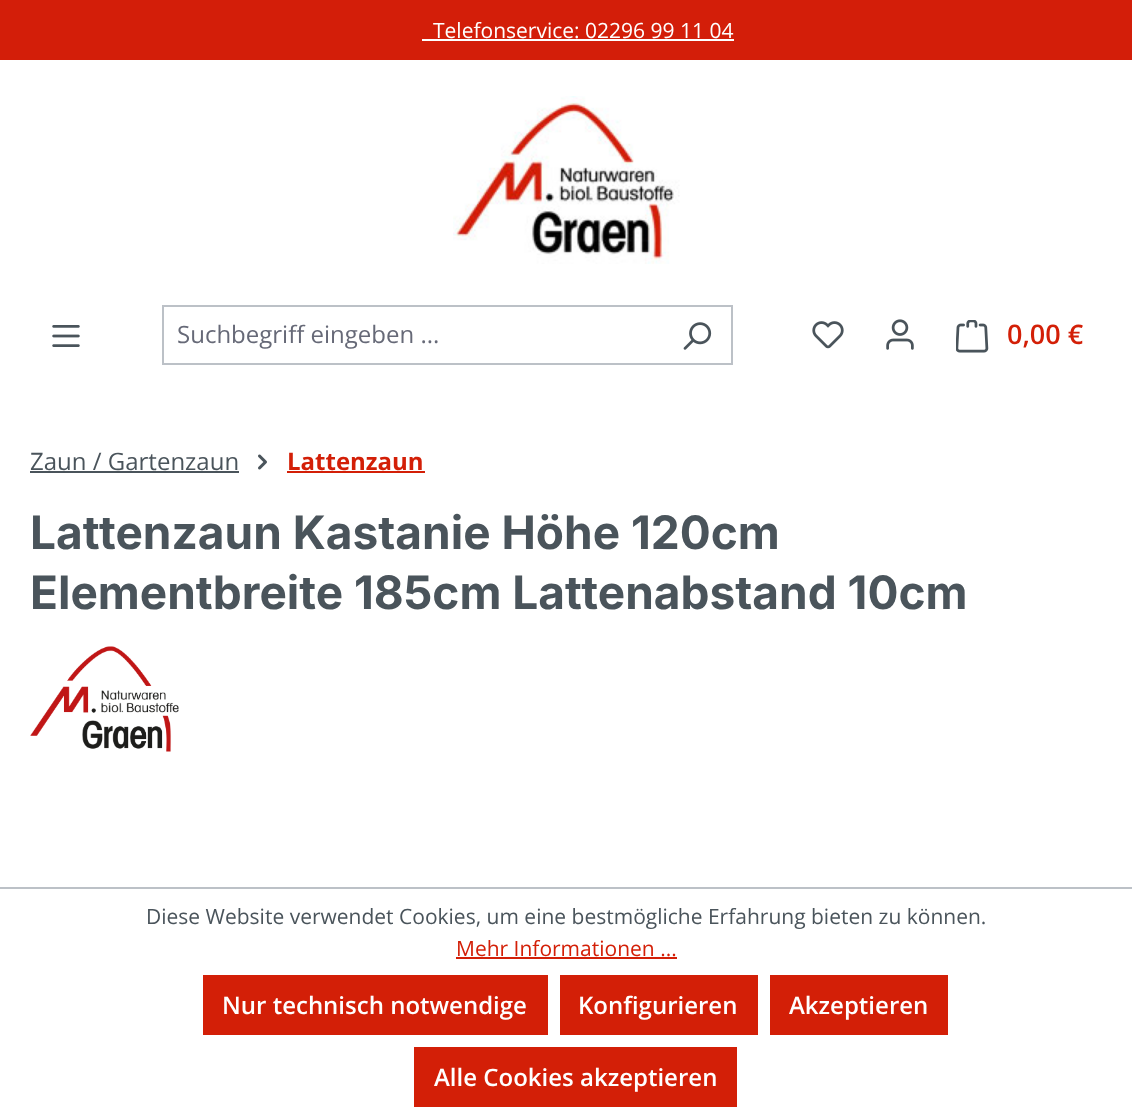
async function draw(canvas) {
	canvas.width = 1132;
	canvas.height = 1119;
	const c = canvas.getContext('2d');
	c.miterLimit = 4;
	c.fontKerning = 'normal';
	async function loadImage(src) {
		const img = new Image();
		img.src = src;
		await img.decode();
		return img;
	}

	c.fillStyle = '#fff';
	c.fillRect(0, 0, 1132, 1119);
	c.fillStyle = '#d31e09';
	c.fillRect(0, 0, 1132, 60);
	c.font = '21px Open Sans';
	c.fillStyle = '#fff';
	c.fillText('Telefonservice: 02296 99 11 04', 433, 38);
	c.fillRect(422, 39, 312, 2);
	c.drawImage(await loadImage('img1.png'), 453, 96, 227, 168);
	c.drawImage(await loadImage('img2.png'), 52, 325, 28, 22);
	for (const [x, y, w, h, color] of [
		[162, 305, 570, 2, '#bcc1c7'],
		[162, 363, 501, 2, '#bcc1c7'],
		[162, 305, 2, 60, '#bcc1c7'],
	]) {
		c.fillStyle = color;
		c.fillRect(x, y, w, h);
	}
	c.font = '24px Open Sans';
	c.fillStyle = '#666977';
	c.fillText('Suchbegriff eingeben ...', 177, 343);
	c.fillStyle = '#bcc1c7';
	c.fillRect(731, 305, 2, 60);
	c.fillRect(662, 363, 70, 2);
	c.drawImage(await loadImage('img3.png'), 683, 322, 29, 28);
	c.drawImage(await loadImage('img4.png'), 812, 321, 32, 28);
	c.drawImage(await loadImage('img5.png'), 886, 319, 28, 31);
	c.drawImage(await loadImage('img6.png'), 956, 320, 33, 33);
	c.font = '600 27px Open Sans';
	c.fillStyle = '#d31f07';
	c.fillText('0,00 €', 1007, 344);
	c.font = '24px Open Sans';
	c.fillStyle = '#4a545b';
	c.fillText('Zaun / Gartenzaun', 30, 470);
	c.fillRect(30, 471, 209, 2);
	c.drawImage(await loadImage('img7.png'), 258, 454, 9, 16);
	c.font = 'bold 24px Open Sans';
	c.fillStyle = '#d31f07';
	c.fillText('Lattenzaun', 287, 470);
	c.fillRect(287, 471, 138, 2);
	c.font = 'bold 46px Inter';
	c.fillStyle = '#4a545b';
	c.fillText('Lattenzaun Kastanie Höhe 120cm', 30, 549);
	c.fillText('Elementbreite 185cm Lattenabstand 10cm', 30, 609);
	c.drawImage(await loadImage('img8.png'), 30, 646, 149, 106);
	c.fillStyle = '#bcc1c7';
	c.fillRect(0, 887, 1132, 2);
	c.font = '21px Open Sans';
	c.fillStyle = '#4a545b';
	c.fillText('Diese Website verwendet Cookies, um eine bestmögliche Erfahrung bieten zu können.', 146, 924);
	c.fillStyle = '#d31f07';
	c.fillText('Mehr Informationen ...', 456, 956);
	c.fillRect(456, 957, 221, 2);
	c.fillRect(203, 975, 345, 60);
	c.font = '600 24px Open Sans';
	c.fillStyle = '#fff';
	c.fillText('Nur technisch notwendige', 222, 1014);
	c.fillStyle = '#d31f07';
	c.fillRect(560, 975, 198, 60);
	c.fillStyle = '#fff';
	c.fillText('Konfigurieren', 578, 1014);
	c.fillStyle = '#d31f07';
	c.fillRect(770, 975, 178, 60);
	c.fillStyle = '#fff';
	c.fillText('Akzeptieren', 789, 1014);
	c.fillStyle = '#d31f07';
	c.fillRect(414, 1047, 323, 60);
	c.fillStyle = '#fff';
	c.fillText('Alle Cookies akzeptieren', 434, 1086);
}

draw(document.querySelector('canvas'));
